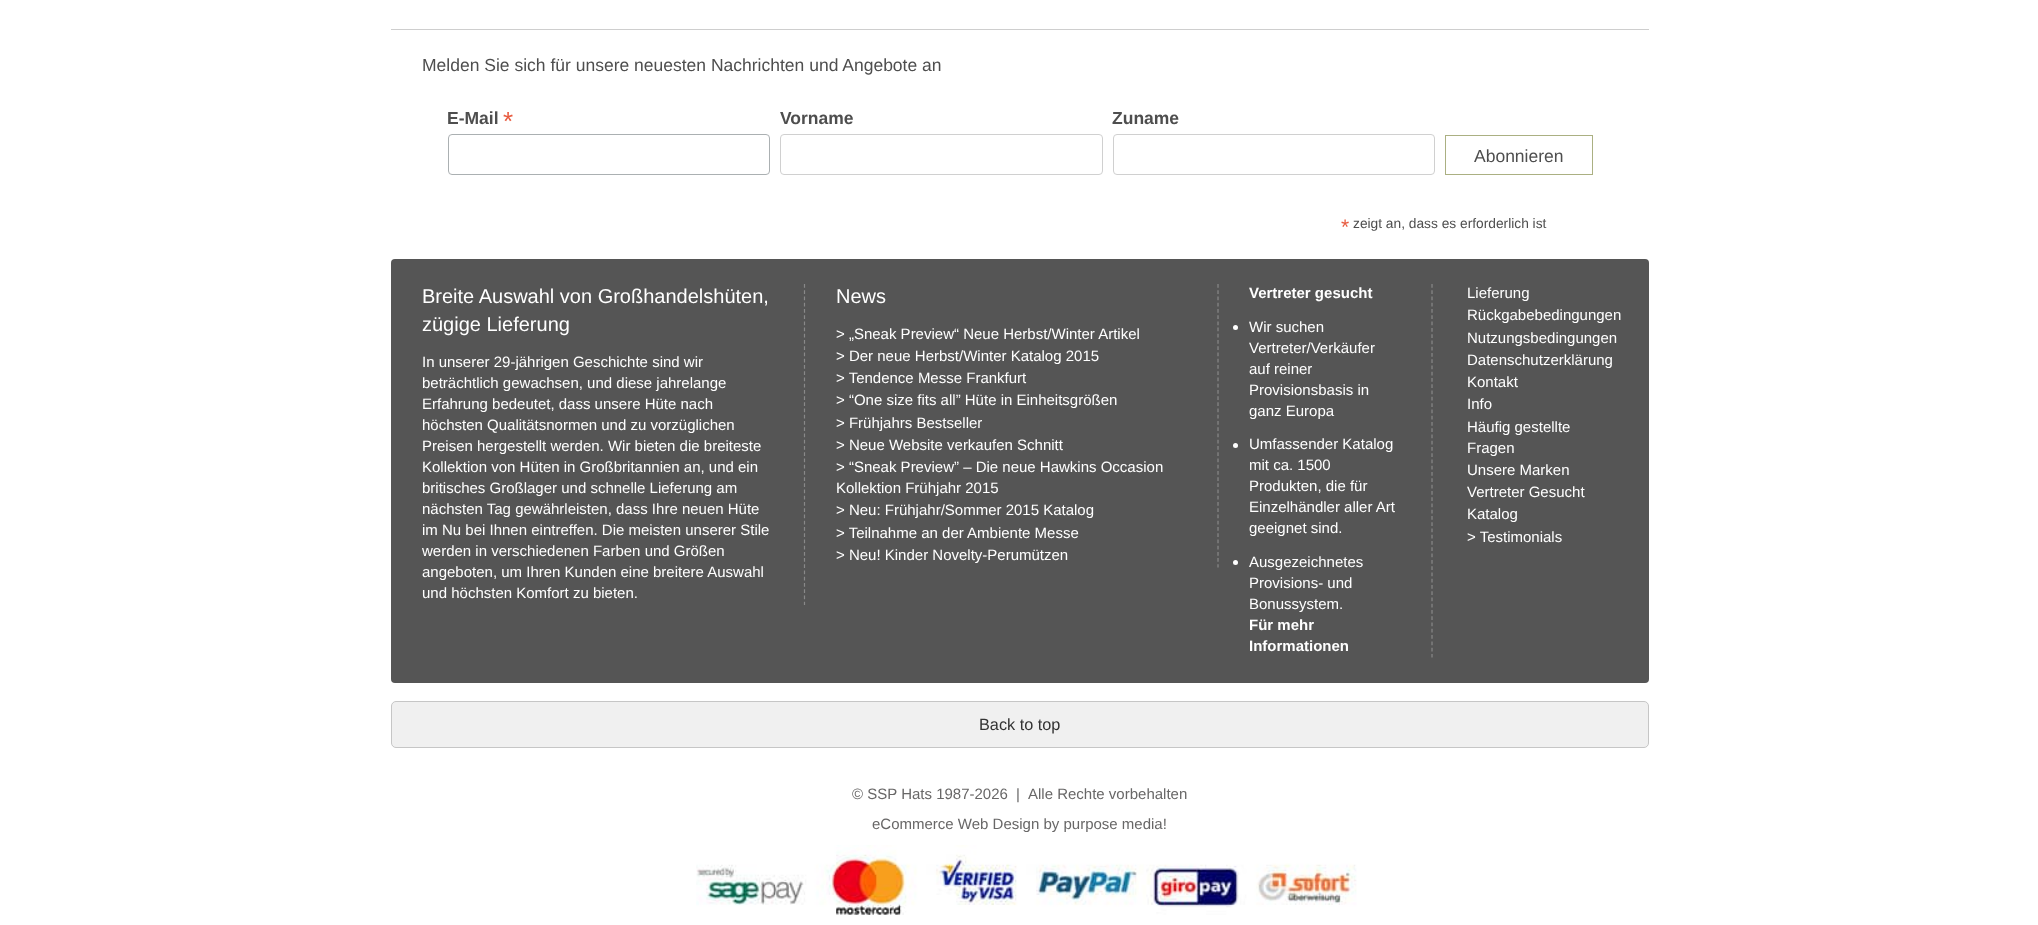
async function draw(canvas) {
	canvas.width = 2038;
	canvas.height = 925;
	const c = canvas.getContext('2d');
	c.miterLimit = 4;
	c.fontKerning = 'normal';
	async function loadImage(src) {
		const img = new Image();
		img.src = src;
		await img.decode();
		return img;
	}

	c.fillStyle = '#fff';
	c.fillRect(0, 0, 2038, 925);
	c.fillStyle = '#cecece';
	c.fillRect(391, 29, 1258, 1);
	c.font = '17.5px Liberation Sans';
	c.fillStyle = '#4e4e4e';
	c.fillText('Melden Sie sich für unsere neuesten Nachrichten und Angebote an', 422, 71);
	c.font = 'bold 17.5px Liberation Sans';
	c.fillText('E-Mail', 447, 124);
	c.font = '26px Liberation Sans';
	c.fillStyle = '#e85c41';
	c.fillText('*', 503, 130);
	c.beginPath();
	c.roundRect(448.5, 134.5, 321, 40, 3.5);
	c.strokeStyle = '#abb0b2';
	c.stroke();
	c.font = 'bold 17.5px Liberation Sans';
	c.fillStyle = '#4e4e4e';
	c.fillText('Vorname', 780, 124);
	c.beginPath();
	c.roundRect(780.5, 134.5, 322, 40, 3.5);
	c.strokeStyle = '#d0d0d0';
	c.stroke();
	c.fillText('Zuname', 1112, 124);
	c.beginPath();
	c.roundRect(1113.5, 134.5, 321, 40, 3.5);
	c.stroke();
	c.strokeStyle = '#abb082';
	c.strokeRect(1445.5, 135.5, 147, 39);
	c.font = '17.5px Liberation Sans';
	c.fillText('Abonnieren', 1474, 162);
	c.font = '21px Liberation Sans';
	c.fillStyle = '#e85c41';
	c.fillText('*', 1341, 234);
	c.font = '13.75px Liberation Sans';
	c.fillStyle = '#4e4e4e';
	c.fillText('zeigt an, dass es erforderlich ist', 1353, 228);
	c.fillStyle = '#555';
	c.beginPath();
	c.roundRect(391, 259, 1258, 424, 4);
	c.fill();
	c.beginPath();
	c.moveTo(804.5, 284);
	c.lineTo(804.5, 605);
	c.strokeStyle = '#898989';
	c.lineWidth = 1.2;
	c.setLineDash([3.75, 2.48]);
	c.stroke();
	c.font = '20px Liberation Sans';
	c.fillStyle = '#fff';
	c.fillText('Breite Auswahl von Großhandelshüten,', 422, 303);
	c.fillText('zügige Lieferung', 422, 331);
	c.font = '15px Liberation Sans';
	for (const [text, x, y] of [
		['In unserer 29-jährigen Geschichte sind wir', 422, 367],
		['beträchtlich gewachsen, und diese jahrelange', 422, 388],
		['Erfahrung bedeutet, dass unsere Hüte nach', 422, 409],
		['höchsten Qualitätsnormen und zu vorzüglichen', 422, 430],
		['Preisen hergestellt werden. Wir bieten die breiteste', 422, 451],
		['Kollektion von Hüten in Großbritannien an, und ein', 422, 472],
		['britisches Großlager und schnelle Lieferung am', 422, 493],
		['nächsten Tag gewährleisten, dass Ihre neuen Hüte', 422, 514],
		['im Nu bei Ihnen eintreffen. Die meisten unserer Stile', 422, 535],
		['werden in verschiedenen Farben und Größen', 422, 556],
		['angeboten, um Ihren Kunden eine breitere Auswahl', 422, 577],
		['und höchsten Komfort zu bieten.', 422, 598],
	]) {
		c.fillText(text, x, y);
	}
	c.beginPath();
	c.moveTo(1218, 284);
	c.lineTo(1218, 567.5);
	c.stroke();
	c.font = '20px Liberation Sans';
	c.fillText('News', 836, 303);
	c.font = '15px Liberation Sans';
	for (const [text, x, y] of [
		['> „Sneak Preview“ Neue Herbst/Winter Artikel', 836, 339],
		['> Der neue Herbst/Winter Katalog 2015', 836, 361],
		['> Tendence Messe Frankfurt', 836, 383],
		['> “One size fits all” Hüte in Einheitsgrößen', 836, 405],
		['> Frühjahrs Bestseller', 836, 428],
		['> Neue Website verkaufen Schnitt', 836, 450],
		['> “Sneak Preview” – Die neue Hawkins Occasion', 836, 472],
		['Kollektion Frühjahr 2015', 836, 493],
		['> Neu: Frühjahr/Sommer 2015 Katalog', 836, 515],
		['> Teilnahme an der Ambiente Messe', 836, 538],
		['> Neu! Kinder Novelty-Perumützen', 836, 560],
	]) {
		c.fillText(text, x, y);
	}
	c.beginPath();
	c.moveTo(1432, 284);
	c.lineTo(1432, 657.5);
	c.setLineDash([3.75, 2.52]);
	c.stroke();
	c.font = 'bold 15px Liberation Sans';
	c.fillText('Vertreter gesucht', 1249, 298);
	c.beginPath();
	c.arc(1235.5, 327.5, 2.5, 0, 2 * Math.PI);
	c.fill();
	c.font = '15px Liberation Sans';
	for (const [text, x, y] of [
		['Wir suchen', 1249, 332],
		['Vertreter/Verkäufer', 1249, 353],
		['auf reiner', 1249, 374],
		['Provisionsbasis in', 1249, 395],
		['ganz Europa', 1249, 416],
	]) {
		c.fillText(text, x, y);
	}
	c.beginPath();
	c.arc(1235.5, 445.5, 2.5, 0, 2 * Math.PI);
	c.fill();
	for (const [text, x, y] of [
		['Umfassender Katalog', 1249, 449],
		['mit ca. 1500', 1249, 470],
		['Produkten, die für', 1249, 491],
		['Einzelhändler aller Art', 1249, 512],
		['geeignet sind.', 1249, 533],
	]) {
		c.fillText(text, x, y);
	}
	c.beginPath();
	c.arc(1235.5, 562.5, 2.5, 0, 2 * Math.PI);
	c.fill();
	for (const [text, x, y] of [
		['Ausgezeichnetes', 1249, 567],
		['Provisions- und', 1249, 588],
		['Bonussystem.', 1249, 609],
	]) {
		c.fillText(text, x, y);
	}
	c.font = 'bold 15px Liberation Sans';
	c.fillText('Für mehr', 1249, 630);
	c.fillText('Informationen', 1249, 651);
	c.font = '15px Liberation Sans';
	for (const [text, x, y] of [
		['Lieferung', 1467, 298],
		['Rückgabebedingungen', 1467, 320],
		['Nutzungsbedingungen', 1467, 343],
		['Datenschutzerklärung', 1467, 365],
		['Kontakt', 1467, 387],
		['Info', 1467, 409],
		['Häufig gestellte', 1467, 432],
		['Fragen', 1467, 453],
		['Unsere Marken', 1467, 475],
		['Vertreter Gesucht', 1467, 497],
		['Katalog', 1467, 519],
		['> Testimonials', 1467, 542],
	]) {
		c.fillText(text, x, y);
	}
	c.fillStyle = '#f0f0f0';
	c.beginPath();
	c.roundRect(391.5, 701.5, 1257, 46, 4.5);
	c.fill();
	c.strokeStyle = '#c6c6c6';
	c.lineWidth = 1;
	c.setLineDash([]);
	c.stroke();
	c.font = '16.25px Liberation Sans';
	c.fillStyle = '#333';
	c.fillText('Back to top', 979, 730);
	c.font = '15px Liberation Sans';
	c.fillStyle = '#686767';
	for (const [text, x, y] of [
		['© SSP Hats 1987-2026', 852, 799],
		['|', 1016, 799],
		['Alle Rechte vorbehalten', 1028, 799],
		['eCommerce Web Design by purpose media!', 872, 829],
	]) {
		c.fillText(text, x, y);
	}
	c.drawImage(await loadImage('img1.png'), 696, 845, 661, 70);
}

draw(document.querySelector('canvas'));
